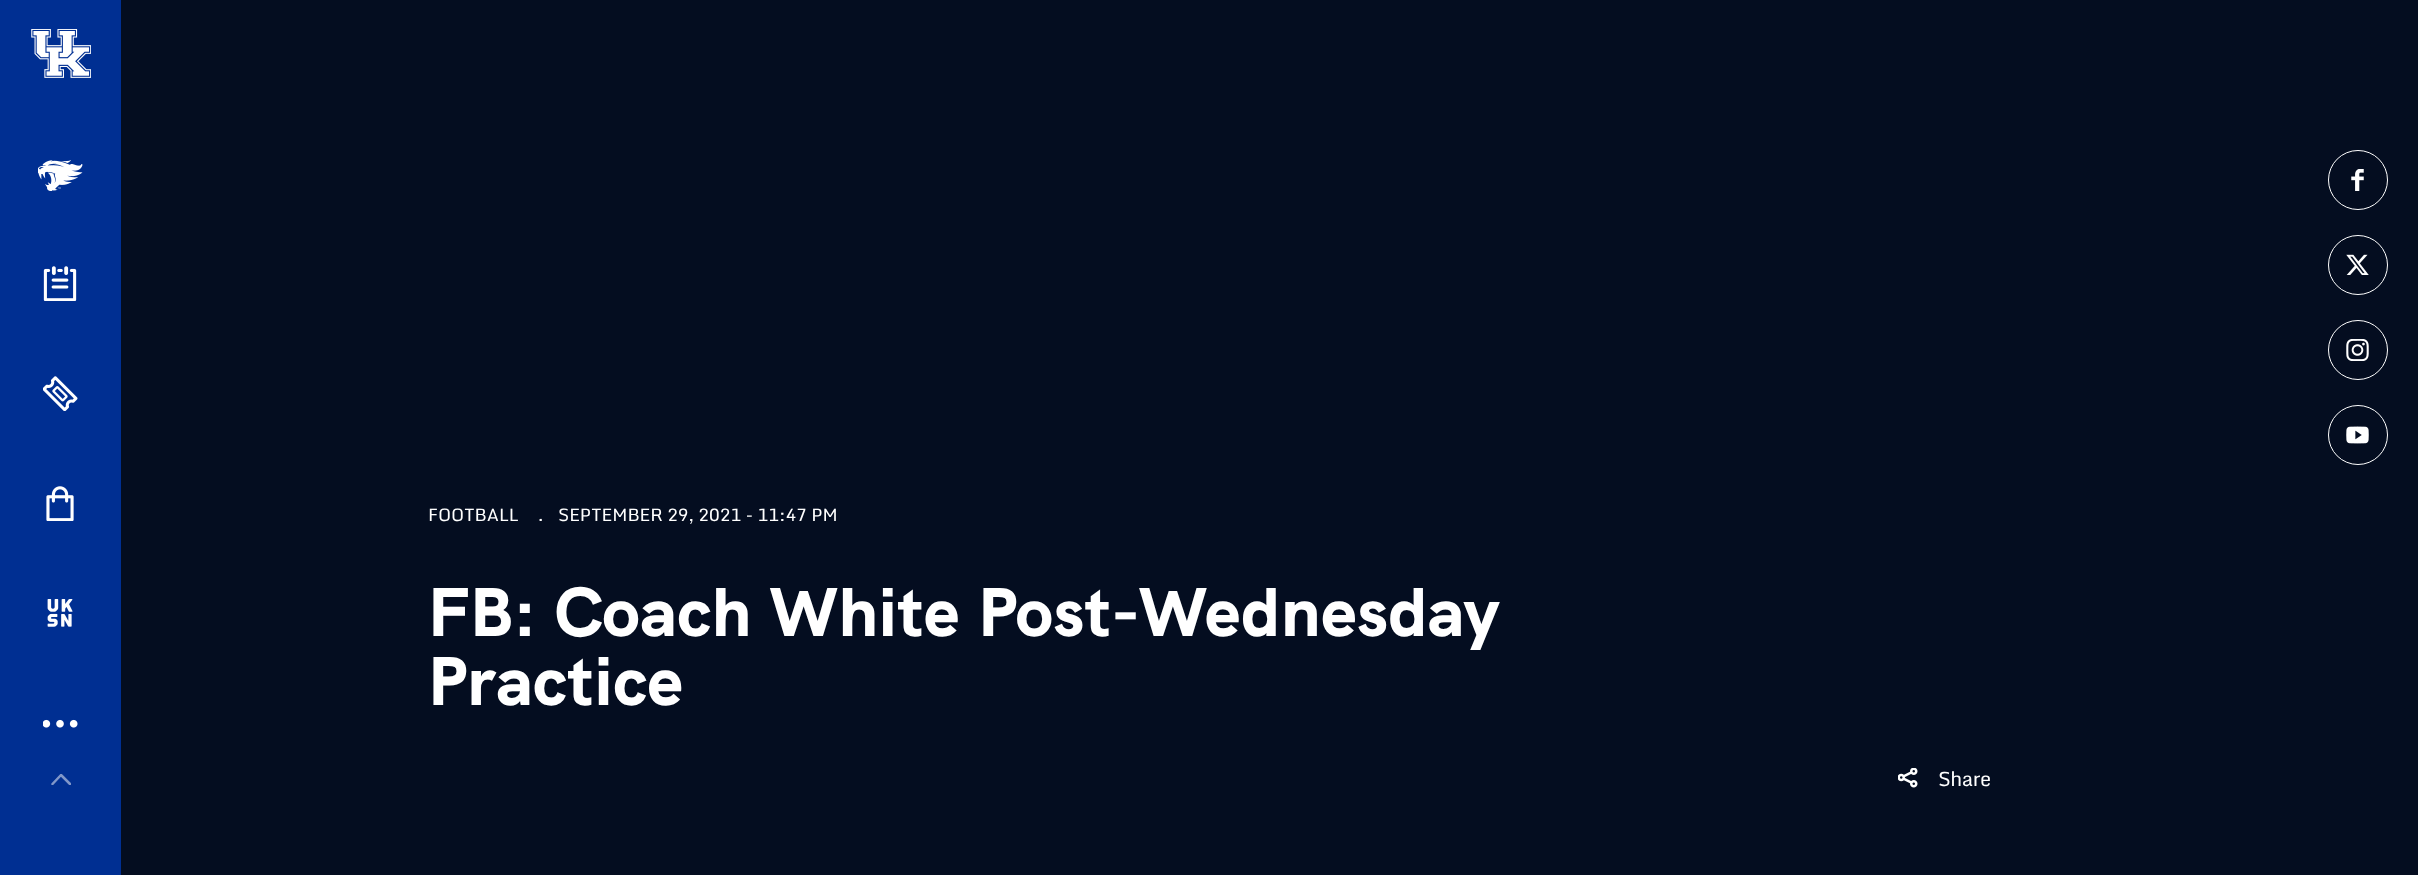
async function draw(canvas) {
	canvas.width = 2418;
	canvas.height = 875;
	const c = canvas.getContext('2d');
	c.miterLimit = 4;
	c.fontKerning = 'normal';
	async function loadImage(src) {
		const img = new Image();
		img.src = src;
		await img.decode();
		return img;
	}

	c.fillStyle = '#040d20';
	c.fillRect(0, 0, 2418, 875);
	c.fillStyle = '#002f92';
	c.fillRect(0, 0, 121, 875);
	c.drawImage(await loadImage('img1.png'), 31, 29, 60, 49);
	c.drawImage(await loadImage('img2.png'), 38, 160, 45, 31);
	c.drawImage(await loadImage('img3.png'), 43, 266, 34, 35);
	c.drawImage(await loadImage('img4.png'), 43, 376, 35, 35);
	c.drawImage(await loadImage('img5.png'), 46, 486, 28, 35);
	c.drawImage(await loadImage('img6.png'), 47, 599, 26, 28);
	c.drawImage(await loadImage('img7.png'), 43, 719, 35, 9);
	c.save();
	c.beginPath();
	c.rect(51, 774, 20, 11);
	c.clip();
	c.beginPath();
	c.moveTo(52.5, 784);
	c.lineTo(61, 775);
	c.lineTo(70, 784);
	c.strokeStyle = '#8097c9';
	c.lineWidth = 2.5;
	c.lineCap = 'round';
	c.lineJoin = 'round';
	c.stroke();
	c.restore();
	c.beginPath();
	c.arc(2358, 180, 29.5, 0, 2 * Math.PI);
	c.strokeStyle = '#fff';
	c.stroke();
	c.drawImage(await loadImage('img8.png'), 2351, 169, 13, 22);
	c.beginPath();
	c.arc(2358, 265, 29.5, 0, 2 * Math.PI);
	c.stroke();
	c.drawImage(await loadImage('img9.png'), 2346, 254, 23, 21);
	c.beginPath();
	c.arc(2358, 350, 29.5, 0, 2 * Math.PI);
	c.stroke();
	c.drawImage(await loadImage('img10.png'), 2346, 339, 23, 22);
	c.beginPath();
	c.arc(2358, 435, 29.5, 0, 2 * Math.PI);
	c.stroke();
	c.drawImage(await loadImage('img11.png'), 2346, 426, 23, 18);
	c.font = '17.5px Monda';
	c.fillStyle = '#fff';
	for (const [text, x, y] of [
		['FOOTBALL', 428, 521],
		['.', 538, 521],
		['SEPTEMBER 29, 2021 - 11:47 PM', 558, 521],
	]) {
		c.fillText(text, x, y);
	}
	c.letterSpacing = '0.9px';
	c.font = '800 68.75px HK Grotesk';
	c.fillText('FB: Coach White Post-Wednesday', 428, 636);
	c.fillText('Practice', 428, 705);
	c.drawImage(await loadImage('img12.png'), 1898, 768, 20, 20);
	c.letterSpacing = '-0.5px';
	c.font = '20px Monda';
	c.fillText('Share', 1938, 786);
}

draw(document.querySelector('canvas'));
